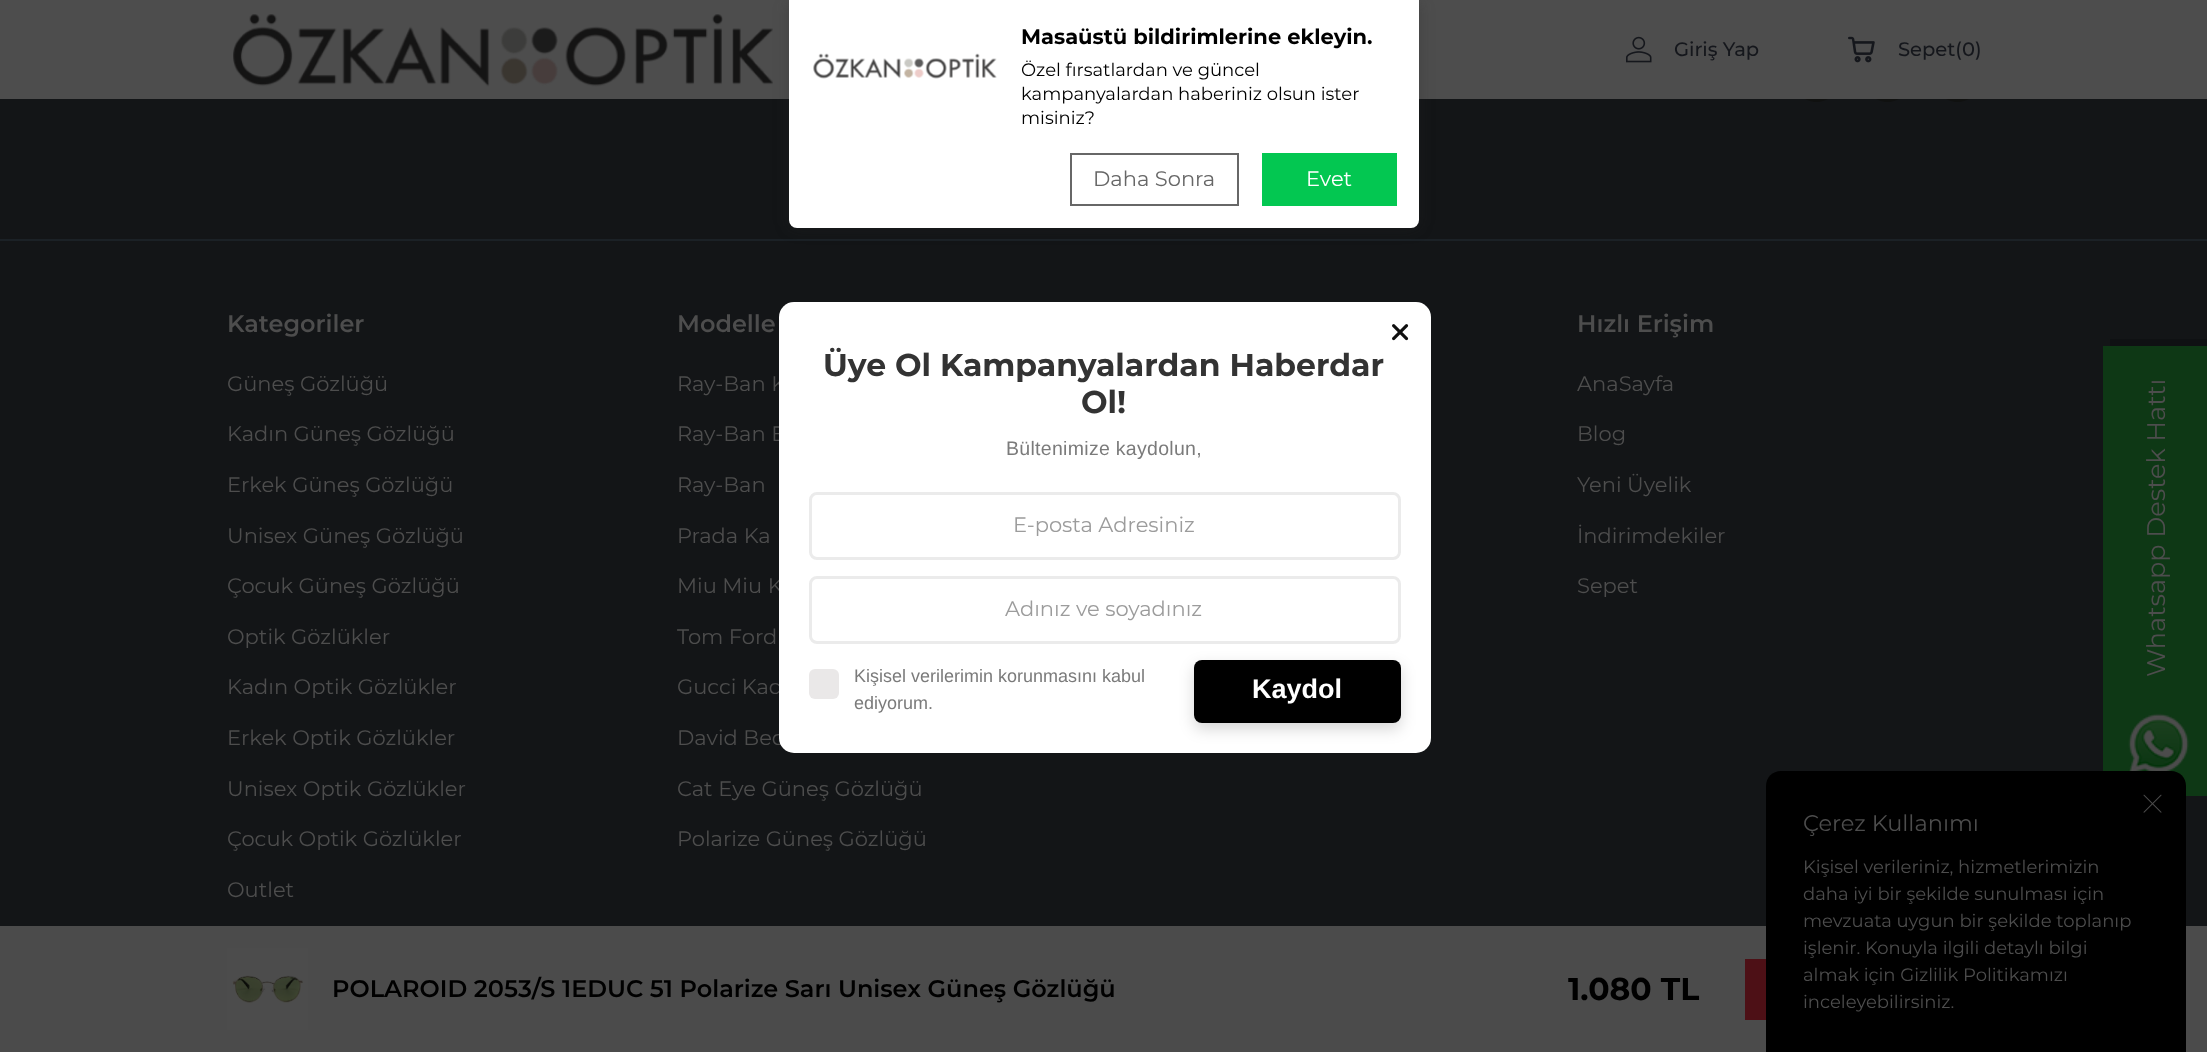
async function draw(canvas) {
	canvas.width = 2207;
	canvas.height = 1052;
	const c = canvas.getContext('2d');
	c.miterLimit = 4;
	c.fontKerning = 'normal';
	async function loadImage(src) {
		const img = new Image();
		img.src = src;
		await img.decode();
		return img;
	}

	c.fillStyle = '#131517';
	c.fillRect(0, 0, 2207, 1052);
	c.fillStyle = '#4d4d4d';
	c.fillRect(0, 0, 2207, 99);
	c.drawImage(await loadImage('img2.png'), 233, 14, 540, 73);
	c.fillStyle = '#1b2126';
	c.fillRect(0, 239, 2207, 2);
	c.fillStyle = '#2828284d';
	c.filter = 'blur(7.5px)';
	c.beginPath();
	c.roundRect(789, 0, 630, 228, 8);
	c.fill();
	c.filter = 'none';
	c.fillStyle = '#fff';
	c.beginPath();
	c.roundRect(789, 0, 630, 228, [0, 0, 8, 8]);
	c.fill();
	c.drawImage(await loadImage('img1.png'), 813, 53, 184, 26);
	c.font = 'bold 21px Montserrat';
	c.fillStyle = '#000';
	c.fillText('Masaüstü bildirimlerine ekleyin.', 1021, 44);
	c.font = '18px Montserrat';
	for (const [text, x, y] of [
		['Özel fırsatlardan ve güncel', 1021, 76],
		['kampanyalardan haberiniz olsun ister', 1021, 100],
		['misiniz?', 1021, 124],
	]) {
		c.fillText(text, x, y);
	}
	c.strokeStyle = '#676767';
	c.lineWidth = 2;
	c.strokeRect(1071, 154, 167, 51);
	c.font = '21px Montserrat';
	c.fillStyle = '#676767';
	c.fillText('Daha Sonra', 1093, 186);
	c.fillStyle = '#03c751';
	c.fillRect(1262, 153, 135, 53);
	c.fillStyle = '#fff';
	c.fillText('Evet', 1306, 186);
	c.drawImage(await loadImage('img3.png'), 1626, 36, 26, 27);
	c.font = '500 19.5px Montserrat';
	c.fillStyle = '#15171c';
	c.fillText('Giriş Yap', 1674, 56);
	c.drawImage(await loadImage('img4.png'), 1848, 36, 27, 27);
	c.fillText('Sepet(0)', 1898, 56);
	c.drawImage(await loadImage('img5.png'), 1805, 99, 23, 3);
	c.drawImage(await loadImage('img5.png'), 1876, 99, 23, 3);
	c.drawImage(await loadImage('img5.png'), 1946, 99, 23, 3);
	c.font = '600 24px Montserrat';
	c.fillStyle = '#4d4d4d';
	c.fillText('Kategoriler', 227, 332);
	c.font = '21px Montserrat';
	for (const [text, x, y] of [
		['Güneş Gözlüğü', 227, 391],
		['Kadın Güneş Gözlüğü', 227, 441],
		['Erkek Güneş Gözlüğü', 227, 492],
		['Unisex Güneş Gözlüğü', 227, 543],
		['Çocuk Güneş Gözlüğü', 227, 593],
		['Optik Gözlükler', 227, 644],
		['Kadın Optik Gözlükler', 227, 694],
		['Erkek Optik Gözlükler', 227, 745],
		['Unisex Optik Gözlükler', 227, 796],
		['Çocuk Optik Gözlükler', 227, 846],
		['Outlet', 227, 897],
	]) {
		c.fillText(text, x, y);
	}
	c.font = '600 24px Montserrat';
	c.fillText('Modelle', 677, 332);
	c.font = '21px Montserrat';
	for (const [text, x, y] of [
		['Ray-Ban K', 677, 391],
		['Ray-Ban E', 677, 441],
		['Ray-Ban', 677, 492],
		['Prada Ka', 677, 543],
		['Miu Miu K', 677, 593],
		['Tom Ford', 677, 644],
		['Gucci Kad', 677, 694],
		['David Bec', 677, 745],
		['Cat Eye Güneş Gözlüğü', 677, 796],
		['Polarize Güneş Gözlüğü', 677, 846],
	]) {
		c.fillText(text, x, y);
	}
	c.font = '600 24px Montserrat';
	c.fillText('Hızlı Erişim', 1577, 332);
	c.font = '21px Montserrat';
	for (const [text, x, y] of [
		['AnaSayfa', 1577, 391],
		['Blog', 1577, 441],
		['Yeni Üyelik', 1577, 492],
		['İndirimdekiler', 1577, 543],
		['Sepet', 1577, 593],
	]) {
		c.fillText(text, x, y);
	}
	c.fillStyle = '#fff';
	c.beginPath();
	c.roundRect(779, 302, 652, 451, 15);
	c.fill();
	c.drawImage(await loadImage('img6.png'), 1392, 324, 17, 17);
	c.font = 'bold 31.5px Montserrat';
	c.fillStyle = '#333';
	c.fillText('Üye Ol Kampanyalardan Haberdar', 823, 376);
	c.fillText('Ol!', 1081, 413);
	c.letterSpacing = '0.3px';
	c.font = '19.5px Liberation Sans';
	c.fillStyle = '#7b7b7b';
	c.fillText('Bültenimize kaydolun,', 1006, 455);
	c.beginPath();
	c.roundRect(810.5, 493.5, 589, 65, 6.5);
	c.strokeStyle = '#ebebeb';
	c.lineWidth = 3;
	c.stroke();
	c.letterSpacing = '0px';
	c.font = '21px Montserrat';
	c.fillStyle = '#9c9c9c';
	c.fillText('E-posta Adresiniz', 1013, 532);
	c.beginPath();
	c.roundRect(810.5, 577.5, 589, 65, 6.5);
	c.stroke();
	c.fillText('Adınız ve soyadınız', 1005, 616);
	c.fillStyle = '#eae8e8';
	c.beginPath();
	c.roundRect(809, 669, 30, 30, 6);
	c.fill();
	c.font = '18px Liberation Sans';
	c.fillStyle = '#7b7b7b';
	c.fillText('Kişisel verilerimin korunmasını kabul', 854, 682);
	c.fillText('ediyorum.', 854, 709);
	c.fillStyle = '#00000029';
	c.filter = 'blur(7.5px)';
	c.beginPath();
	c.roundRect(1194, 666, 207, 63, 8);
	c.fill();
	c.filter = 'none';
	c.fillStyle = '#000';
	c.beginPath();
	c.roundRect(1194, 660, 207, 63, 8);
	c.fill();
	c.font = 'bold 27px Liberation Sans';
	c.fillStyle = '#fff';
	c.fillText('Kaydol', 1252, 698);
	c.fillStyle = '#0f1113';
	c.beginPath();
	c.moveTo(2110, 339);
	c.lineTo(2110, 346);
	c.lineTo(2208, 346);
	c.lineTo(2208, 789);
	c.lineTo(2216, 789);
	c.lineTo(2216, 339);
	c.closePath();
	c.fill();
	c.fillStyle = '#0e3815';
	c.fillRect(2103, 346, 104, 450);
	c.font = '25.5px Montserrat';
	c.fillStyle = '#4d4d4d';
	c.save();
	c.translate(2165, 677);
	c.rotate(-90 * Math.PI / 180);
	c.fillText('Whatsapp Destek Hattı', 0, 0);
	c.restore();
	c.drawImage(await loadImage('img7.png'), 2128, 713, 61, 58);
	c.fillStyle = '#4b4b4b';
	c.fillRect(0, 926, 2207, 126);
	c.drawImage(await loadImage('img8.png'), 227, 948, 82, 82);
	c.font = '600 24px Montserrat';
	c.fillStyle = '#000';
	c.fillText('POLAROID 2053/S 1EDUC 51 Polarize Sarı Unisex Güneş Gözlüğü', 332, 997);
	c.font = 'bold 31.5px Montserrat';
	c.fillText('1.080 TL', 1568, 1000);
	c.fillStyle = '#4d1016';
	c.fillRect(1745, 959, 21, 61);
	c.fillStyle = '#000';
	c.beginPath();
	c.moveTo(1781, 771);
	c.lineTo(2171, 771);
	c.bezierCurveTo(2179.5, 771, 2186, 777.5, 2186, 786);
	c.lineTo(2186, 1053);
	c.lineTo(1766, 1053);
	c.lineTo(1766, 786);
	c.bezierCurveTo(1766, 777.5, 1772.5, 771, 1781, 771);
	c.closePath();
	c.fill();
	c.drawImage(await loadImage('img9.png'), 2143, 794, 19, 19);
	c.font = '22.5px Montserrat';
	c.fillStyle = '#4d4d4d';
	c.fillText('Çerez Kullanımı', 1803, 831);
	c.font = '18px Montserrat';
	for (const [text, x, y] of [
		['Kişisel verileriniz, hizmetlerimizin', 1803, 873],
		['daha iyi bir şekilde sunulması için', 1803, 900],
		['mevzuata uygun bir şekilde toplanıp', 1803, 927],
		['işlenir. Konuyla ilgili detaylı bilgi', 1803, 954],
		['almak için Gizlilik Politikamızı', 1803, 981],
		['inceleyebilirsiniz.', 1803, 1008],
	]) {
		c.fillText(text, x, y);
	}
}

draw(document.querySelector('canvas'));
